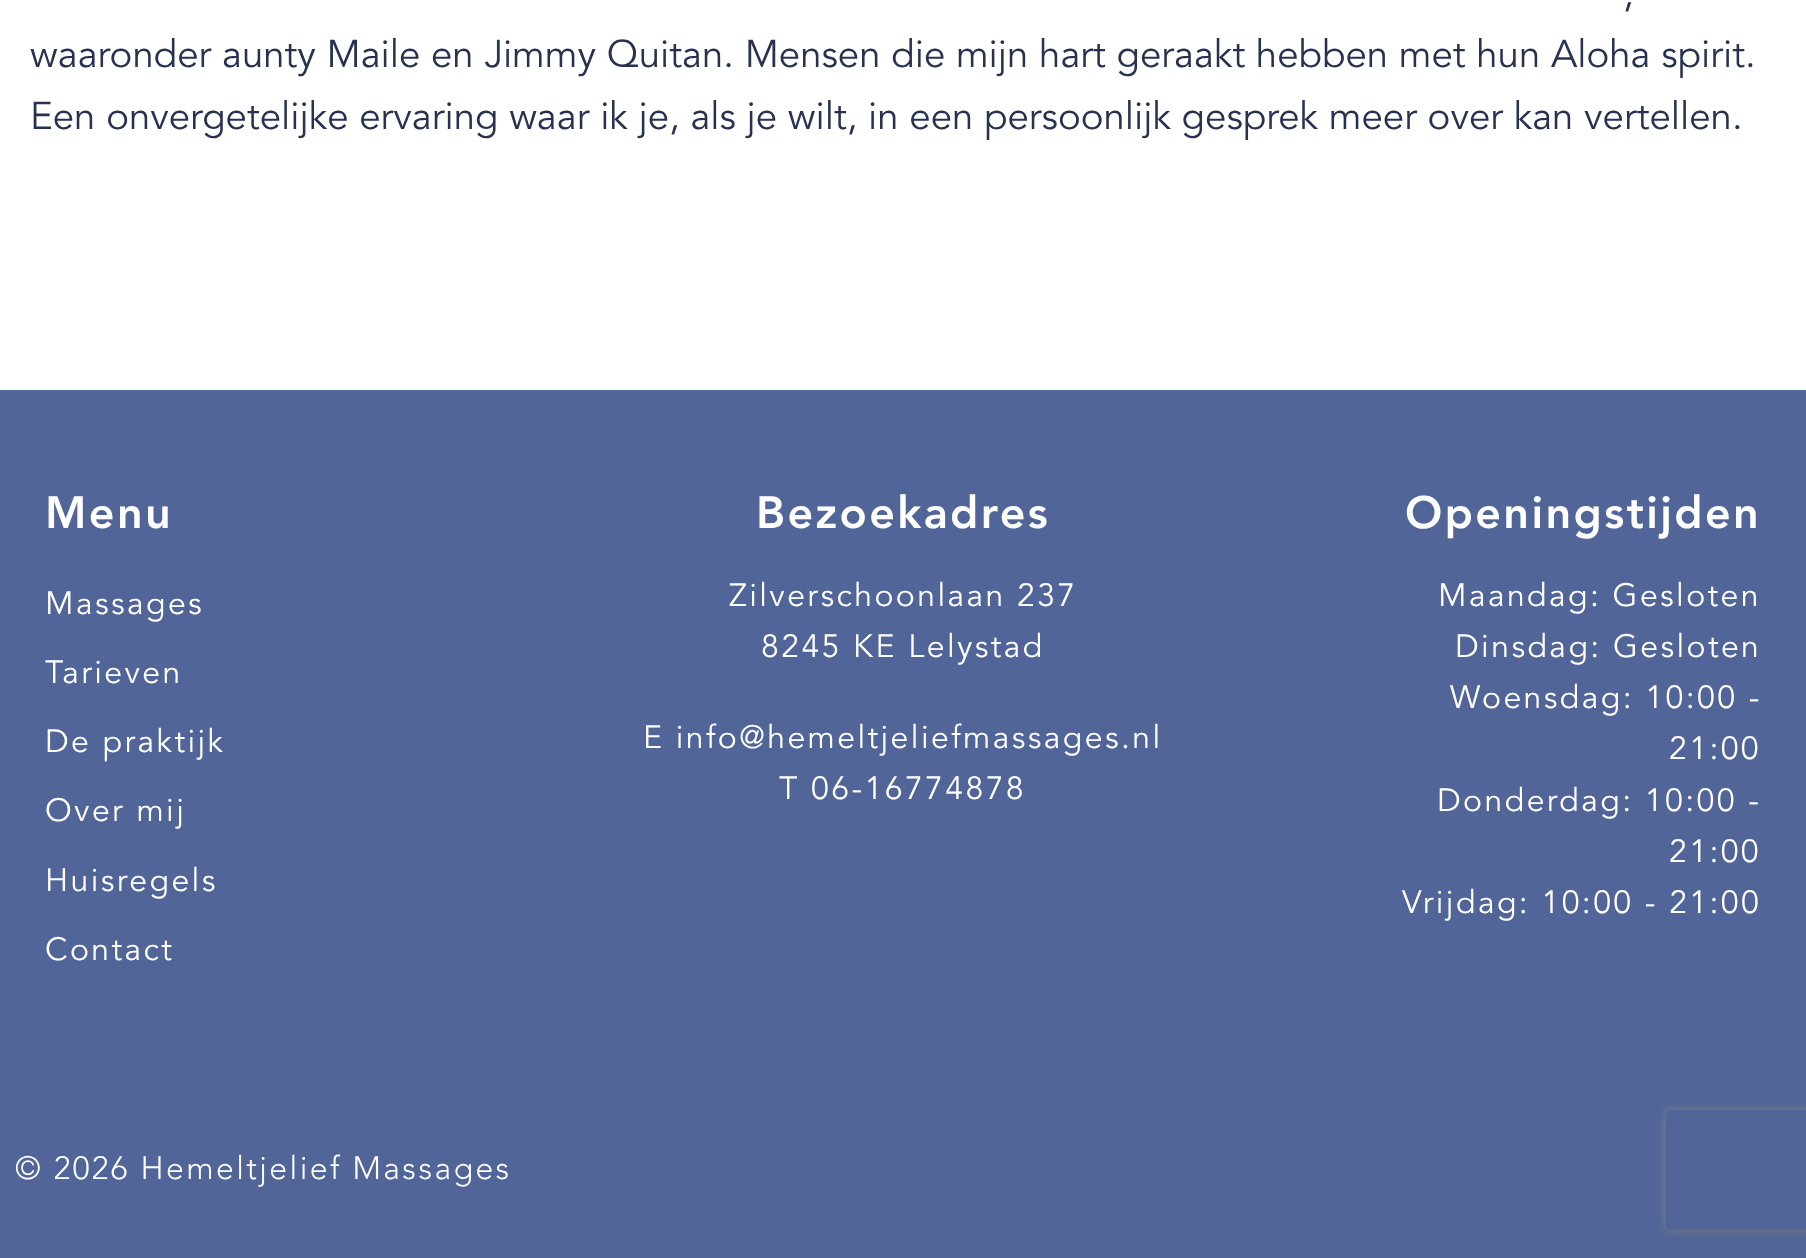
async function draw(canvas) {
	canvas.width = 1806;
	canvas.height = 1258;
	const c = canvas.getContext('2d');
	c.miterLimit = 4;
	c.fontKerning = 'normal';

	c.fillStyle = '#fff';
	c.fillRect(0, 0, 1806, 1258);
	c.font = '38.4px Avenir';
	c.fillStyle = '#273250';
	for (const [text, x, y] of [
		[',', 1623, 6],
		['waaronder aunty Maile en Jimmy Quitan. Mensen die mijn hart geraakt hebben met hun Aloha spirit.', 30, 67],
		['Een onvergetelijke ervaring waar ik je, als je wilt, in een persoonlijk gesprek meer over kan vertellen.', 30, 129],
	]) {
		c.fillText(text, x, y);
	}
	c.fillStyle = '#516599';
	c.fillRect(0, 390, 1806, 868);
	c.letterSpacing = '2.4px';
	c.font = '900 44.75px Avenir';
	c.fillStyle = '#fff';
	c.fillText('Menu', 45, 528);
	c.font = '32px Avenir';
	for (const [text, x, y] of [
		['Massages', 45, 614],
		['Tarieven', 45, 683],
		['De praktijk', 45, 752],
		['Over mij', 45, 821],
		['Huisregels', 45, 891],
		['Contact', 45, 960],
	]) {
		c.fillText(text, x, y);
	}
	c.font = '900 44.75px Avenir';
	c.fillText('Bezoekadres', 756, 528);
	c.font = '32px Avenir';
	for (const [text, x, y] of [
		['Zilverschoonlaan 237', 729, 606],
		['8245 KE Lelystad', 761, 657],
		['E info@hemeltjeliefmassages.nl', 643, 748],
		['T 06-16774878', 779, 799],
	]) {
		c.fillText(text, x, y);
	}
	c.font = '900 44.75px Avenir';
	c.fillText('Openingstijden', 1405, 528);
	c.font = '32px Avenir';
	for (const [text, x, y] of [
		['Maandag: Gesloten', 1438, 606],
		['Dinsdag: Gesloten', 1455, 657],
		['Woensdag: 10:00 -', 1450, 708],
		['21:00', 1669, 759],
		['Donderdag: 10:00 -', 1437, 811],
		['21:00', 1669, 862],
		['Vrijdag: 10:00 - 21:00', 1402, 913],
	]) {
		c.fillText(text, x, y);
	}
	c.font = '300 32px Avenir';
	c.fillText('© 2026 Hemeltjelief Massages', 15, 1179);
	c.save();
	c.beginPath();
	c.moveTo(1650, 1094);
	c.lineTo(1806, 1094);
	c.lineTo(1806, 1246);
	c.lineTo(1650, 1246);
	c.closePath();
	c.moveTo(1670, 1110);
	c.lineTo(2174, 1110);
	c.bezierCurveTo(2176, 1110, 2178, 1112, 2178, 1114);
	c.lineTo(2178, 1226);
	c.bezierCurveTo(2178, 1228, 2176, 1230, 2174, 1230);
	c.lineTo(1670, 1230);
	c.bezierCurveTo(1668, 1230, 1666, 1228, 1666, 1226);
	c.lineTo(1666, 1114);
	c.bezierCurveTo(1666, 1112, 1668, 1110, 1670, 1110);
	c.closePath();
	c.clip('evenodd');
	c.fillStyle = '#808080';
	c.filter = 'blur(5px)';
	c.beginPath();
	c.roundRect(1666, 1110, 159, 120, 4);
	c.fill();
	c.filter = 'none';
	c.restore();
}

draw(document.querySelector('canvas'));
